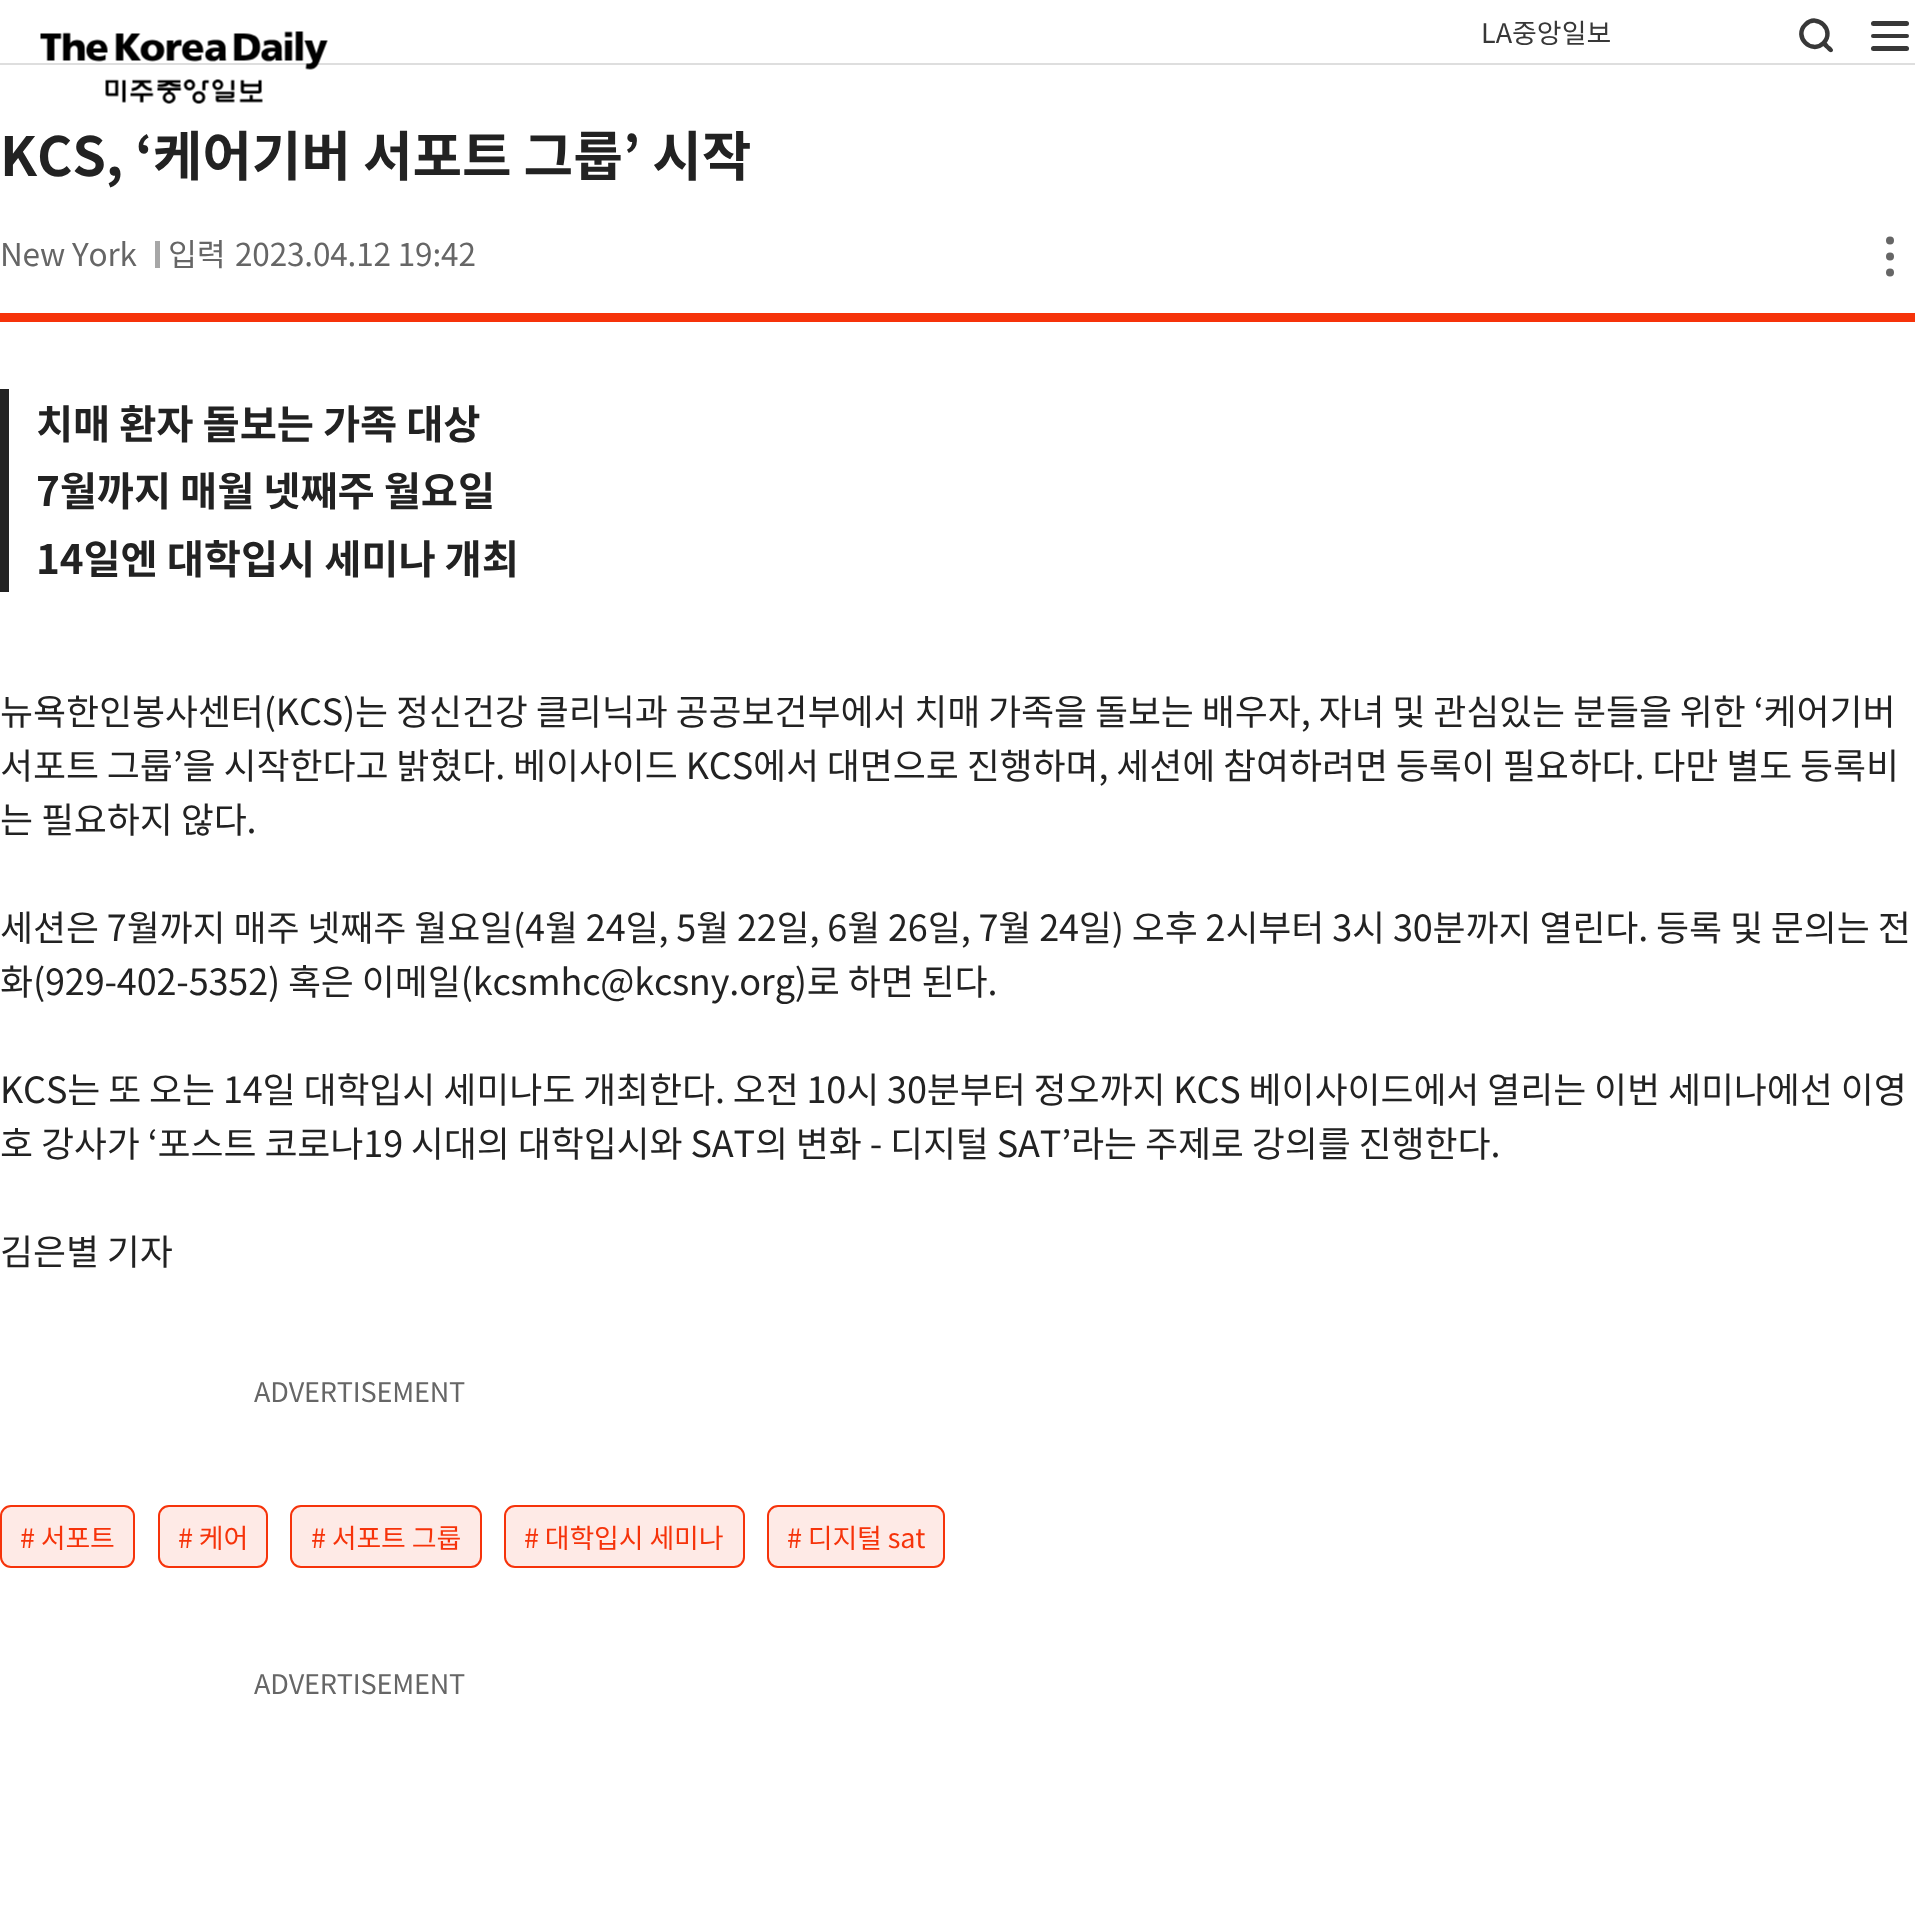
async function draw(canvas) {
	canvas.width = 1915;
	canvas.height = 1917;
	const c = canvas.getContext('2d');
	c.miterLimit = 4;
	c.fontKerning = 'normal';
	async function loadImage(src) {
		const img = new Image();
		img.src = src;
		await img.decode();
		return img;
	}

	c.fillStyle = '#fff';
	c.fillRect(0, 0, 1915, 1917);
	c.fillStyle = '#dedede';
	c.fillRect(0, 63, 1915, 2);
	c.drawImage(await loadImage('img1.png'), 40, 31, 288, 73);
	c.font = '27px Noto Sans KR';
	c.fillStyle = '#383838';
	c.fillText('LA중앙일보', 1481, 43);
	c.beginPath();
	c.moveTo(1805.5, 24.5);
	c.bezierCurveTo(1817.5, 12.5, 1835.5, 31, 1823.5, 43);
	c.bezierCurveTo(1811.5, 55, 1793, 36.5, 1805.5, 24.5);
	c.closePath();
	c.strokeStyle = '#383838';
	c.lineWidth = 4.5;
	c.stroke();
	c.beginPath();
	c.moveTo(1823, 42);
	c.bezierCurveTo(1825, 40, 1828, 44, 1829, 45.5);
	c.bezierCurveTo(1830.5, 46.5, 1834.5, 49.5, 1832.5, 51.5);
	c.bezierCurveTo(1830, 54, 1827.5, 50, 1826, 48.5);
	c.bezierCurveTo(1824.5, 47, 1820.5, 44.5, 1823, 42);
	c.closePath();
	c.fill();
	c.beginPath();
	c.roundRect(1871, 21, 38, 5, 2.5);
	c.fill();
	c.beginPath();
	c.roundRect(1871, 34, 38, 4, 2);
	c.fill();
	c.beginPath();
	c.roundRect(1871, 46, 38, 5, 2.5);
	c.fill();
	c.fillStyle = '#f6330a';
	c.fillRect(0, 313, 1915, 9);
	c.letterSpacing = '-0.15px';
	c.font = 'bold 54px Noto Sans KR';
	c.fillStyle = '#222';
	c.fillText('KCS, ‘케어기버 서포트 그룹’ 시작', 0, 176);
	c.font = '31.5px Noto Sans KR';
	c.fillStyle = '#666';
	c.fillText('New York', 0, 266);
	c.fillStyle = '#a7a7a7';
	c.fillRect(155, 241, 5, 27);
	c.fillStyle = '#666';
	c.fillText('입력', 168, 266);
	c.fillText('2023.04.12 19:42', 235, 266);
	c.beginPath();
	c.arc(1890, 240.5, 4, 0, 2 * Math.PI);
	c.fill();
	c.beginPath();
	c.arc(1890, 256.5, 4, 0, 2 * Math.PI);
	c.fill();
	c.beginPath();
	c.arc(1890, 272.5, 4, 0, 2 * Math.PI);
	c.fill();
	c.fillStyle = '#222';
	c.fillRect(0, 389, 9, 203);
	c.font = 'bold 40.5px Noto Sans KR';
	for (const [text, x, y] of [
		['치매 환자 돌보는 가족 대상', 36, 439],
		['7월까지 매월 넷째주 월요일', 36, 506],
		['14일엔 대학입시 세미나 개최', 36, 574],
	]) {
		c.fillText(text, x, y);
	}
	c.font = '36px Noto Sans KR';
	for (const [text, x, y] of [
		['뉴욕한인봉사센터(KCS)는 정신건강 클리닉과 공공보건부에서 치매 가족을 돌보는 배우자, 자녀 및 관심있는 분들을 위한 ‘케어기버', 0, 725],
		['서포트 그룹’을 시작한다고 밝혔다. 베이사이드 KCS에서 대면으로 진행하며, 세션에 참여하려면 등록이 필요하다. 다만 별도 등록비', 0, 779],
		['는 필요하지 않다.', 0, 833],
		['세션은 7월까지 매주 넷째주 월요일(4월 24일, 5월 22일, 6월 26일, 7월 24일) 오후 2시부터 3시 30분까지 열린다. 등록 및 문의는 전', 0, 941],
		['화(929-402-5352) 혹은 이메일(kcsmhc@kcsny.org)로 하면 된다.', 0, 995],
		['KCS는 또 오는 14일 대학입시 세미나도 개최한다. 오전 10시 30분부터 정오까지 KCS 베이사이드에서 열리는 이번 세미나에선 이영', 0, 1103],
		['호 강사가 ‘포스트 코로나19 시대의 대학입시와 SAT의 변화 - 디지털 SAT’라는 주제로 강의를 진행한다.', 0, 1157],
		['김은별 기자', 0, 1265],
	]) {
		c.fillText(text, x, y);
	}
	c.font = '27px Noto Sans KR';
	c.fillStyle = '#666';
	c.fillText('ADVERTISEMENT', 254, 1402);
	c.fillStyle = '#feeae6';
	c.beginPath();
	c.roundRect(1, 1506, 133, 61, 10);
	c.fill();
	c.strokeStyle = '#f6330a';
	c.lineWidth = 2;
	c.stroke();
	c.fillStyle = '#f6330a';
	c.fillText('# 서포트', 20, 1548);
	c.fillStyle = '#feeae6';
	c.beginPath();
	c.roundRect(159, 1506, 108, 61, 10);
	c.fill();
	c.stroke();
	c.fillStyle = '#f6330a';
	c.fillText('# 케어', 178, 1548);
	c.fillStyle = '#feeae6';
	c.beginPath();
	c.roundRect(291, 1506, 190, 61, 10);
	c.fill();
	c.stroke();
	c.fillStyle = '#f6330a';
	c.fillText('# 서포트 그룹', 311, 1548);
	c.fillStyle = '#feeae6';
	c.beginPath();
	c.roundRect(505, 1506, 239, 61, 10);
	c.fill();
	c.stroke();
	c.fillStyle = '#f6330a';
	c.fillText('# 대학입시 세미나', 524, 1548);
	c.fillStyle = '#feeae6';
	c.beginPath();
	c.roundRect(768, 1506, 176, 61, 10);
	c.fill();
	c.stroke();
	c.fillStyle = '#f6330a';
	c.fillText('# 디지털 sat', 787, 1548);
	c.fillStyle = '#666';
	c.fillText('ADVERTISEMENT', 254, 1694);
}

draw(document.querySelector('canvas'));
